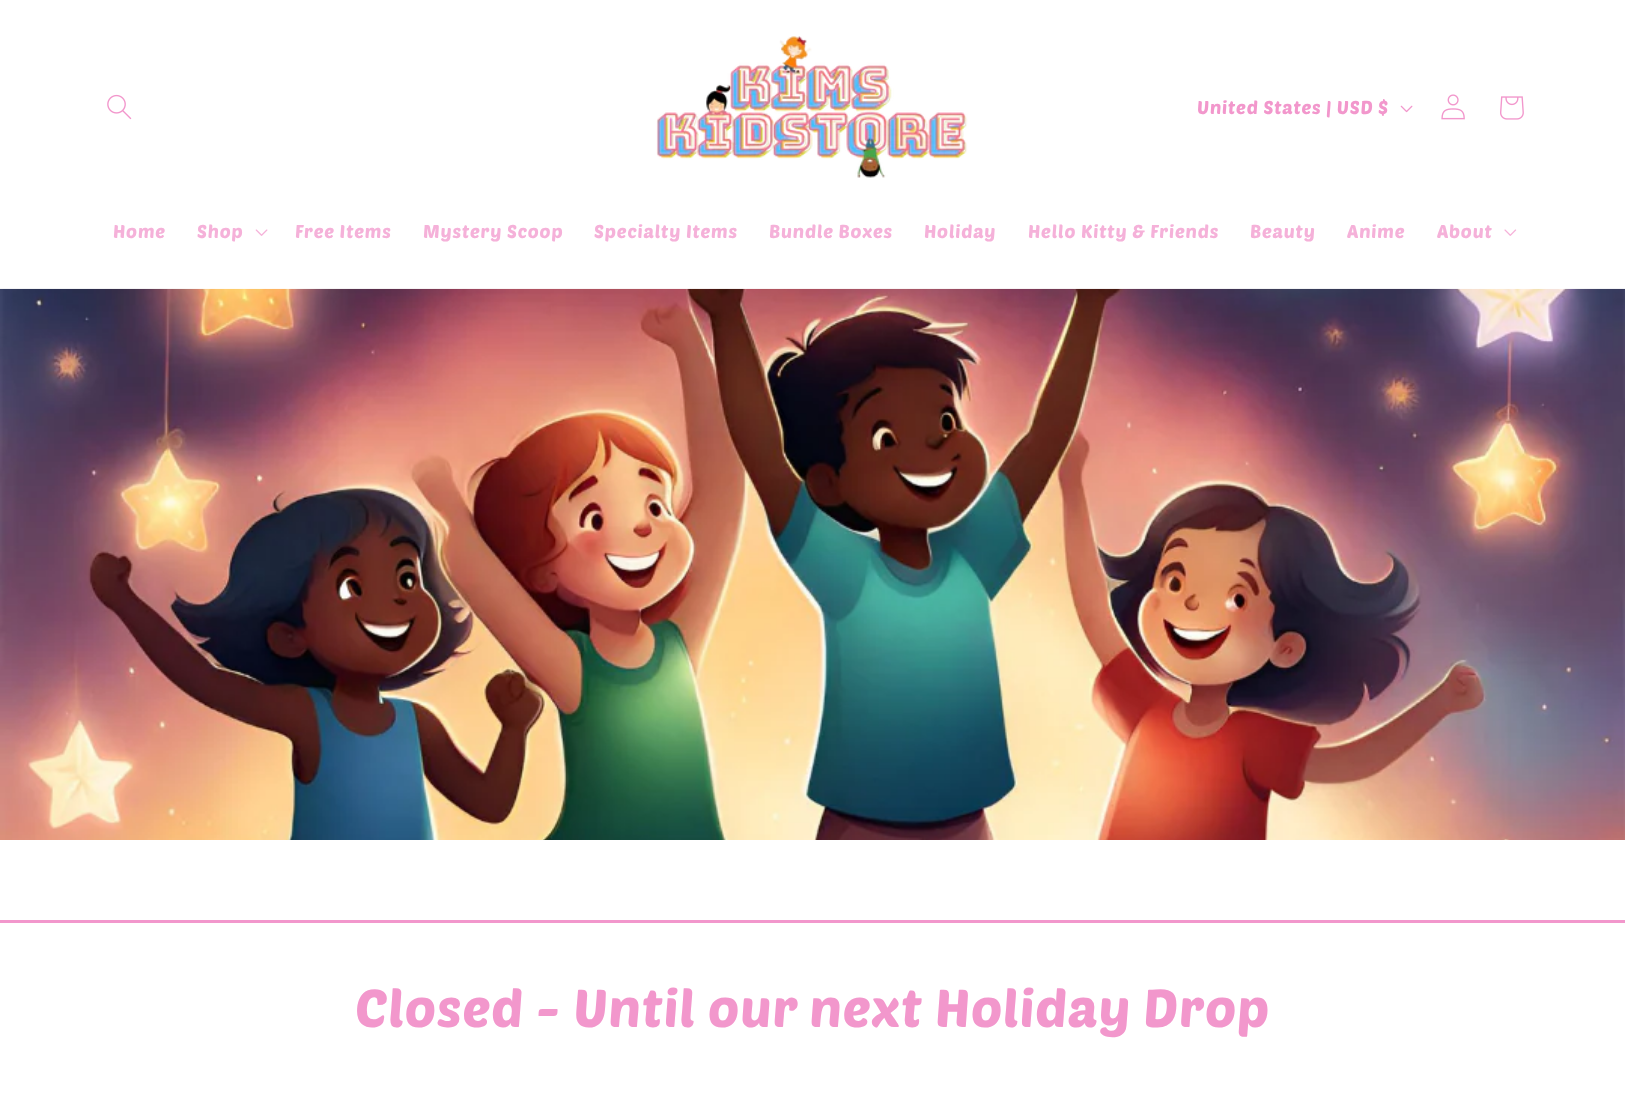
async function draw(canvas) {
	canvas.width = 1625;
	canvas.height = 1103;
	const c = canvas.getContext('2d');
	c.miterLimit = 4;
	c.fontKerning = 'normal';
	async function loadImage(src) {
		const img = new Image();
		img.src = src;
		await img.decode();
		return img;
	}

	c.fillStyle = '#fff';
	c.fillRect(0, 0, 1625, 1103);
	c.drawImage(await loadImage('img1.png'), 107, 94, 25, 26);
	c.drawImage(await loadImage('img2.png'), 656, 36, 312, 142);
	c.letterSpacing = '0.8px';
	c.font = '18.4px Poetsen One';
	c.fillStyle = '#f297cc';
	c.fillText('United States | USD $', 1197, 114);
	c.drawImage(await loadImage('img3.png'), 1400, 105, 13, 8);
	c.drawImage(await loadImage('img4.png'), 1441, 94, 24, 26);
	c.drawImage(await loadImage('img5.png'), 1500, 96, 24, 24);
	c.fillStyle = '#f5b1d9';
	c.fillText('Home', 113, 238);
	c.fillText('Shop', 197, 238);
	c.drawImage(await loadImage('img6.png'), 255, 229, 13, 7);
	for (const [text, x, y] of [
		['Free Items', 295, 238],
		['Mystery Scoop', 423, 238],
		['Specialty Items', 594, 238],
		['Bundle Boxes', 769, 238],
		['Holiday', 924, 238],
		['Hello Kitty & Friends', 1028, 238],
		['Beauty', 1250, 238],
		['Anime', 1347, 238],
		['About', 1437, 238],
	]) {
		c.fillText(text, x, y);
	}
	c.drawImage(await loadImage('img7.png'), 1504, 229, 13, 7);
	c.drawImage(await loadImage('img8.png'), 0, 288, 1625, 552);
	c.fillStyle = '#f297cc';
	c.fillRect(0, 920, 1625, 3);
	c.font = '52.5px Poetsen One';
	c.fillText('Closed - Until our next Holiday Drop', 355, 1027);
}

draw(document.querySelector('canvas'));
